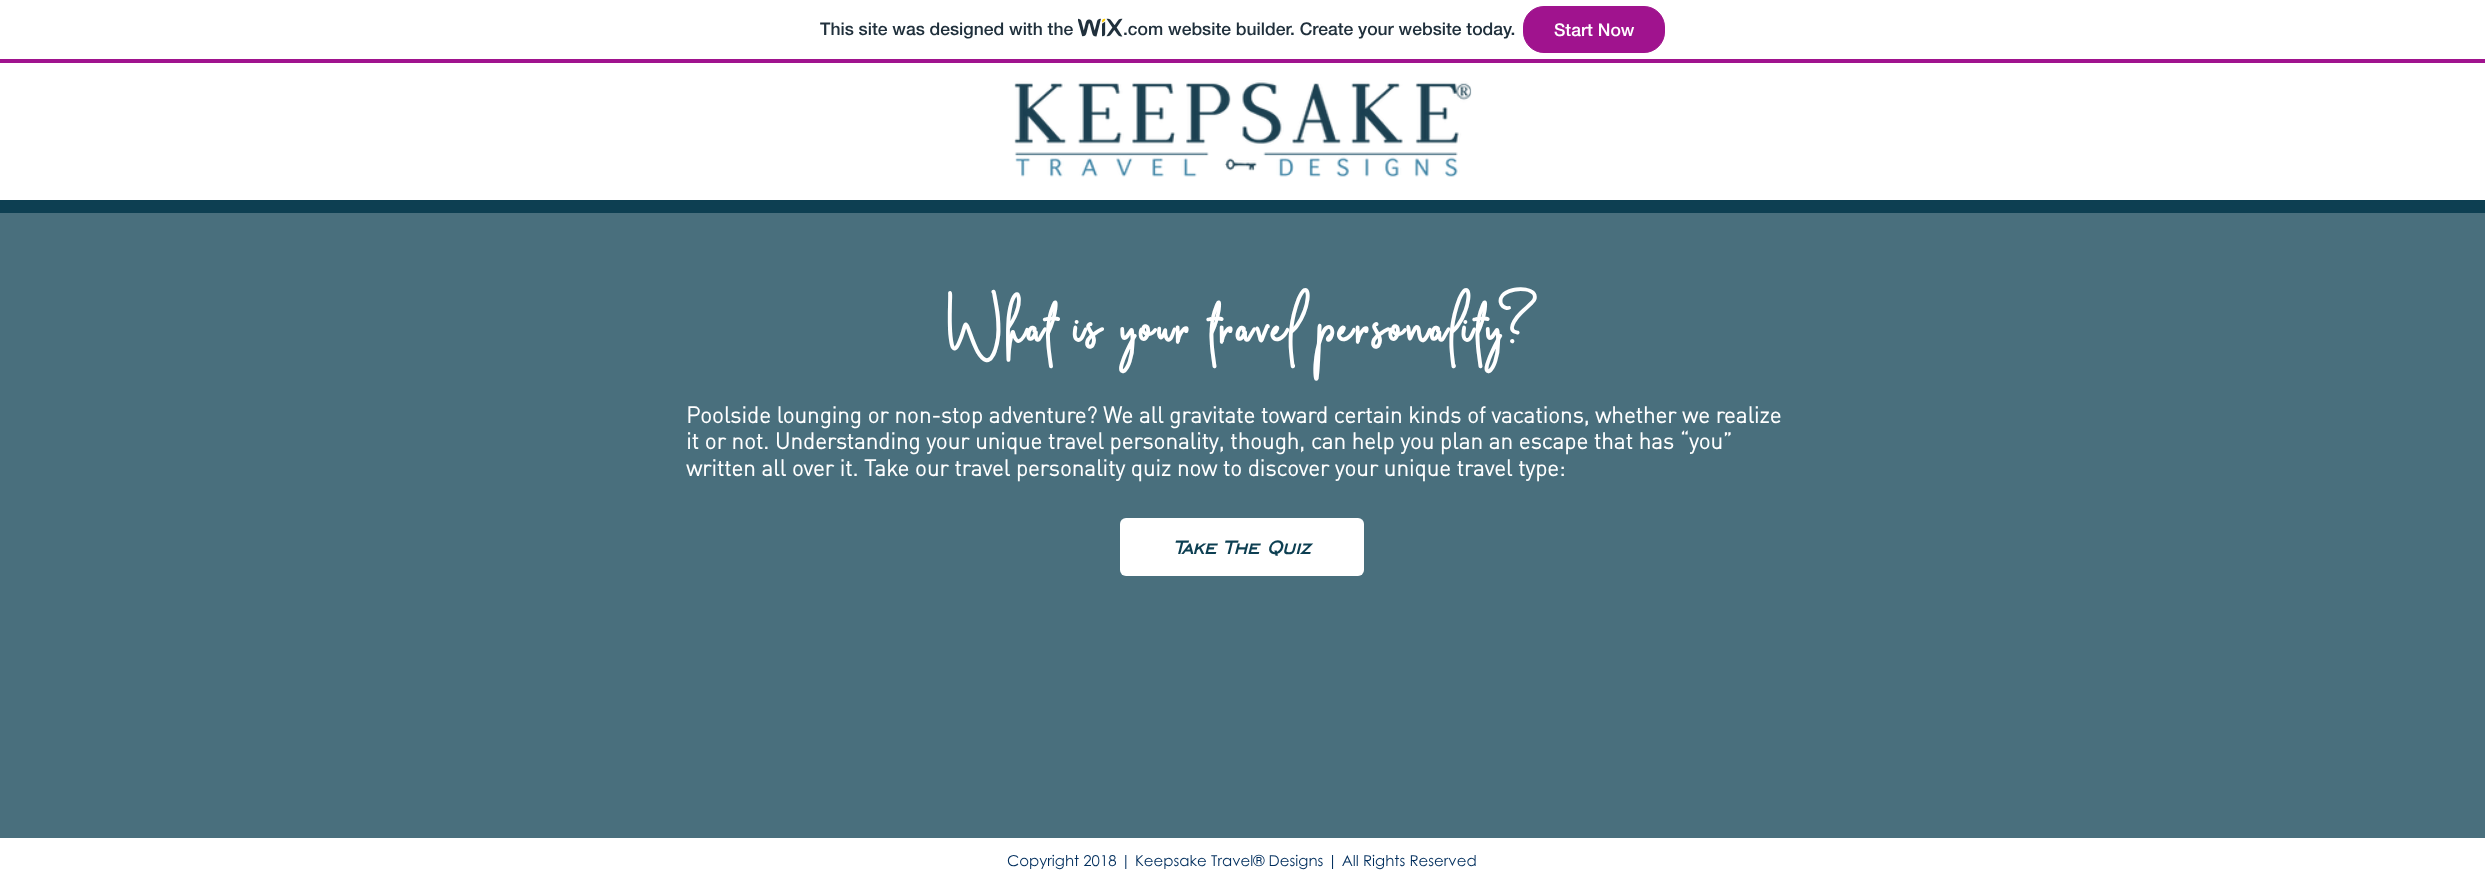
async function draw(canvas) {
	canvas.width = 2485;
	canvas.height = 892;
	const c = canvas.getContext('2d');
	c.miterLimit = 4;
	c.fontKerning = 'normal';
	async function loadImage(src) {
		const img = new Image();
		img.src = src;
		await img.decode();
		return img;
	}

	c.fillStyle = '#fff';
	c.fillRect(0, 0, 2485, 892);
	c.fillStyle = '#a0138e';
	c.fillRect(0, 59, 2485, 4);
	c.font = '500 17.5px "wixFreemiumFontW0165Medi"';
	c.fillStyle = '#20303c';
	c.fillText('This site was designed with the', 820, 35);
	c.drawImage(await loadImage('img1.png'), 1078, 18, 45, 19);
	c.fillText('.com website builder. Create your website today.', 1123, 35);
	c.fillStyle = '#a0138e';
	c.beginPath();
	c.roundRect(1523.5, 6.5, 141, 46, 20.5);
	c.fill();
	c.strokeStyle = '#a0138e';
	c.stroke();
	c.fillStyle = '#fff';
	c.fillText('Start Now', 1554, 36);
	c.drawImage(await loadImage('img2.png'), 1014, 80, 458, 97);
	c.fillStyle = '#0d3f52';
	c.fillRect(0, 200, 2485, 13);
	c.fillStyle = '#496f7d';
	c.fillRect(0, 213, 2485, 625);
	c.letterSpacing = '3.3px';
	c.font = 'bold 66.25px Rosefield';
	c.fillStyle = '#fff';
	c.fillText('What is your travel personality?', 948, 346);
	c.letterSpacing = '0px';
	c.font = 'bold 22.5px DIN';
	for (const [text, x, y] of [
		['Poolside lounging or non-stop adventure? We all gravitate toward certain kinds of vacations, whether we realize', 686, 423],
		['it or not. Understanding your unique travel personality, though, can help you plan an escape that has “you”', 686, 449],
		['written all over it. Take our travel personality quiz now to discover your unique travel type:', 686, 476],
	]) {
		c.fillText(text, x, y);
	}
	c.beginPath();
	c.roundRect(1120, 518, 244, 58, 6);
	c.fill();
	c.font = 'italic bold 23.75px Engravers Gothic';
	c.fillStyle = '#0d3f52';
	c.fillText('Take The Quiz', 1174, 554);
	c.font = '15px Century Gothic';
	c.fillStyle = '#002e5d';
	c.fillText('Copyright 2018 | Keepsake Travel® Designs | All Rights Reserved', 1007, 866);
}

draw(document.querySelector('canvas'));
